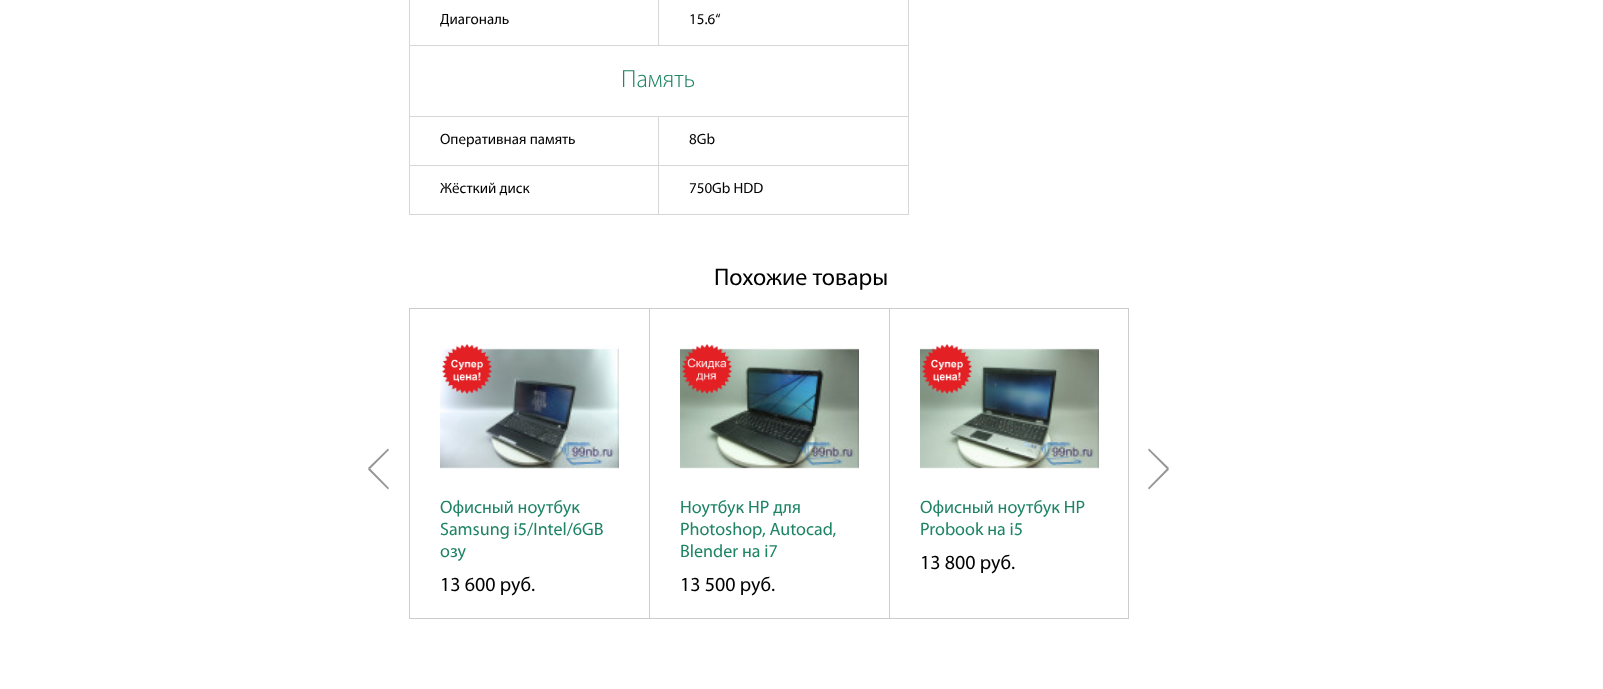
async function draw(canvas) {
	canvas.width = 1603;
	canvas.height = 689;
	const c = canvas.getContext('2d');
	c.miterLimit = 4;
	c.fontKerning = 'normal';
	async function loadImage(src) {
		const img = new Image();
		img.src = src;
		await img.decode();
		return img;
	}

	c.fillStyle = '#fff';
	c.fillRect(0, 0, 1603, 689);
	for (const [x, y, w, h, color] of [
		[908, 0, 1, 46, '#d7d7d7'],
		[658, 45, 251, 1, '#d7d7d7'],
		[658, 0, 1, 46, '#d7d7d7'],
		[409, 45, 250, 1, '#d7d7d7'],
		[409, 0, 1, 46, '#d7d7d7'],
	]) {
		c.fillStyle = color;
		c.fillRect(x, y, w, h);
	}
	c.font = '15px Myriad';
	c.fillStyle = '#000';
	c.fillText('Диагональ', 440, 24);
	c.fillText('15.6“', 689, 24);
	c.font = '300 25px Myriad';
	c.fillStyle = '#1e8464';
	c.fillText('Память', 621, 87);
	for (const [x, y, w, h, color] of [
		[658, 116, 251, 1, '#d7d7d7'],
		[658, 165, 251, 1, '#d7d7d7'],
		[908, 165, 1, 50, '#d7d7d7'],
		[658, 214, 251, 1, '#d7d7d7'],
		[658, 165, 1, 50, '#d7d7d7'],
		[409, 165, 250, 1, '#d7d7d7'],
		[658, 116, 1, 50, '#d7d7d7'],
		[409, 116, 250, 1, '#d7d7d7'],
		[409, 214, 250, 1, '#d7d7d7'],
		[409, 165, 1, 50, '#d7d7d7'],
		[409, 45, 1, 121, '#d7d7d7'],
	]) {
		c.fillStyle = color;
		c.fillRect(x, y, w, h);
	}
	c.font = '15px Myriad';
	c.fillStyle = '#000';
	c.fillText('Оперативная память', 440, 144);
	c.fillStyle = '#d7d7d7';
	c.fillRect(908, 45, 1, 121);
	c.fillStyle = '#000';
	for (const [text, x, y] of [
		['8Gb', 689, 144],
		['Жёсткий диск', 440, 193],
		['750Gb HDD', 689, 193],
	]) {
		c.fillText(text, x, y);
	}
	c.font = '24px Myriad';
	c.fillText('Похожие товары', 714, 285);
	c.fillStyle = '#969696';
	c.beginPath();
	c.moveTo(388, 489.5);
	c.lineTo(368, 469.5);
	c.lineTo(369.5, 468);
	c.lineTo(389, 488);
	c.closePath();
	c.fill();
	c.beginPath();
	c.moveTo(369.5, 469.5);
	c.lineTo(368, 468);
	c.lineTo(388, 448.5);
	c.lineTo(389, 450);
	c.closePath();
	c.fill();
	c.beginPath();
	c.moveTo(1149, 448.5);
	c.lineTo(1169, 468);
	c.lineTo(1167.5, 469.5);
	c.lineTo(1148, 450);
	c.closePath();
	c.fill();
	c.beginPath();
	c.moveTo(1167.5, 468);
	c.lineTo(1169, 469.5);
	c.lineTo(1149, 489.5);
	c.lineTo(1148, 488);
	c.closePath();
	c.fill();
	c.strokeStyle = '#ccc';
	c.strokeRect(409.5, 308.5, 719, 310);
	c.fillStyle = '#ccc';
	c.fillRect(649, 309, 1, 309);
	c.drawImage(await loadImage('img2.png'), 440, 345, 179, 124);
	c.drawImage(await loadImage('img1.png'), 442, 344, 50, 50);
	c.font = '18px Myriad';
	c.fillStyle = '#1e8464';
	for (const [text, x, y] of [
		['Офисный ноутбук', 440, 513],
		['Samsung i5/Intel/6GB', 440, 535],
		['озу', 440, 557],
	]) {
		c.fillText(text, x, y);
	}
	c.font = '20px Myriad';
	c.fillStyle = '#000';
	c.fillText('13 600 руб.', 440, 591);
	c.fillStyle = '#ccc';
	c.fillRect(889, 309, 1, 309);
	c.drawImage(await loadImage('img4.png'), 680, 348, 179, 121);
	c.drawImage(await loadImage('img3.png'), 682, 344, 50, 50);
	c.font = '18px Myriad';
	c.fillStyle = '#1e8464';
	for (const [text, x, y] of [
		['Ноутбук HP для', 680, 513],
		['Photoshop, Autocad,', 680, 535],
		['Blender на i7', 680, 557],
	]) {
		c.fillText(text, x, y);
	}
	c.font = '20px Myriad';
	c.fillStyle = '#000';
	c.fillText('13 500 руб.', 680, 591);
	c.drawImage(await loadImage('img6.png'), 920, 348, 179, 121);
	c.drawImage(await loadImage('img5.png'), 922, 344, 50, 50);
	c.font = '18px Myriad';
	c.fillStyle = '#1e8464';
	c.fillText('Офисный ноутбук HP', 920, 513);
	c.fillText('Probook на i5', 920, 535);
	c.font = '20px Myriad';
	c.fillStyle = '#000';
	c.fillText('13 800 руб.', 920, 569);
}

draw(document.querySelector('canvas'));
